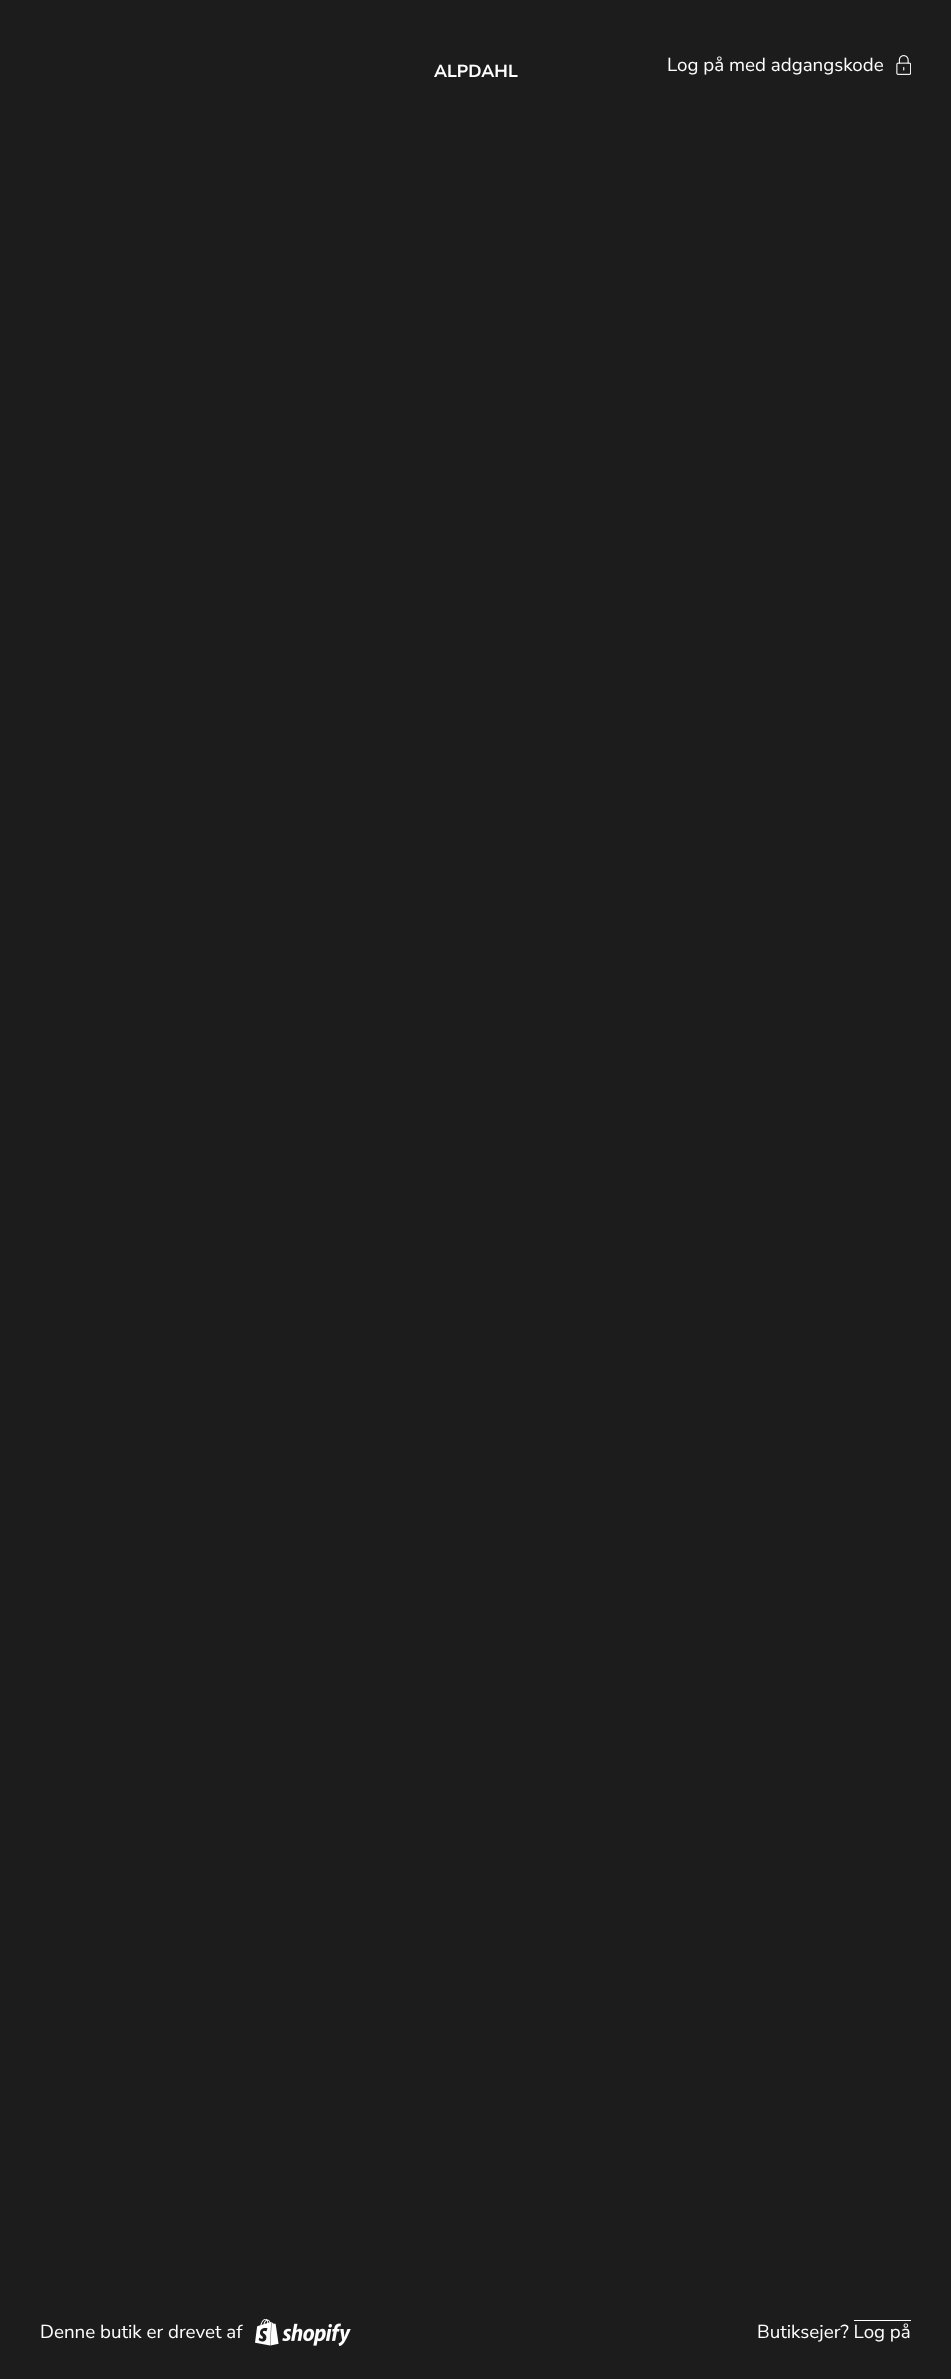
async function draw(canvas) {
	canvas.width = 951;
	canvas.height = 2379;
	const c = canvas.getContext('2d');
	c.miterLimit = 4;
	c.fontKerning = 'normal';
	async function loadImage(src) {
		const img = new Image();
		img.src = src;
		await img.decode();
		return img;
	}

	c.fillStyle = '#1c1c1c';
	c.fillRect(0, 0, 951, 2379);
	c.font = 'bold 17.5px Nunito Sans';
	c.fillStyle = '#fff';
	c.fillText('ALPDAHL', 434, 77);
	c.font = '18.75px Nunito Sans';
	c.fillText('Log på med adgangskode', 667, 71);
	c.drawImage(await loadImage('img1.png'), 896, 55, 15, 20);
	c.fillText('Denne butik er drevet af', 40, 2338);
	c.drawImage(await loadImage('img2.png'), 255, 2319, 96, 27);
	c.fillRect(854, 2320, 57, 1);
	c.fillText('Butiksejer? Log på', 757, 2338);
}

draw(document.querySelector('canvas'));
